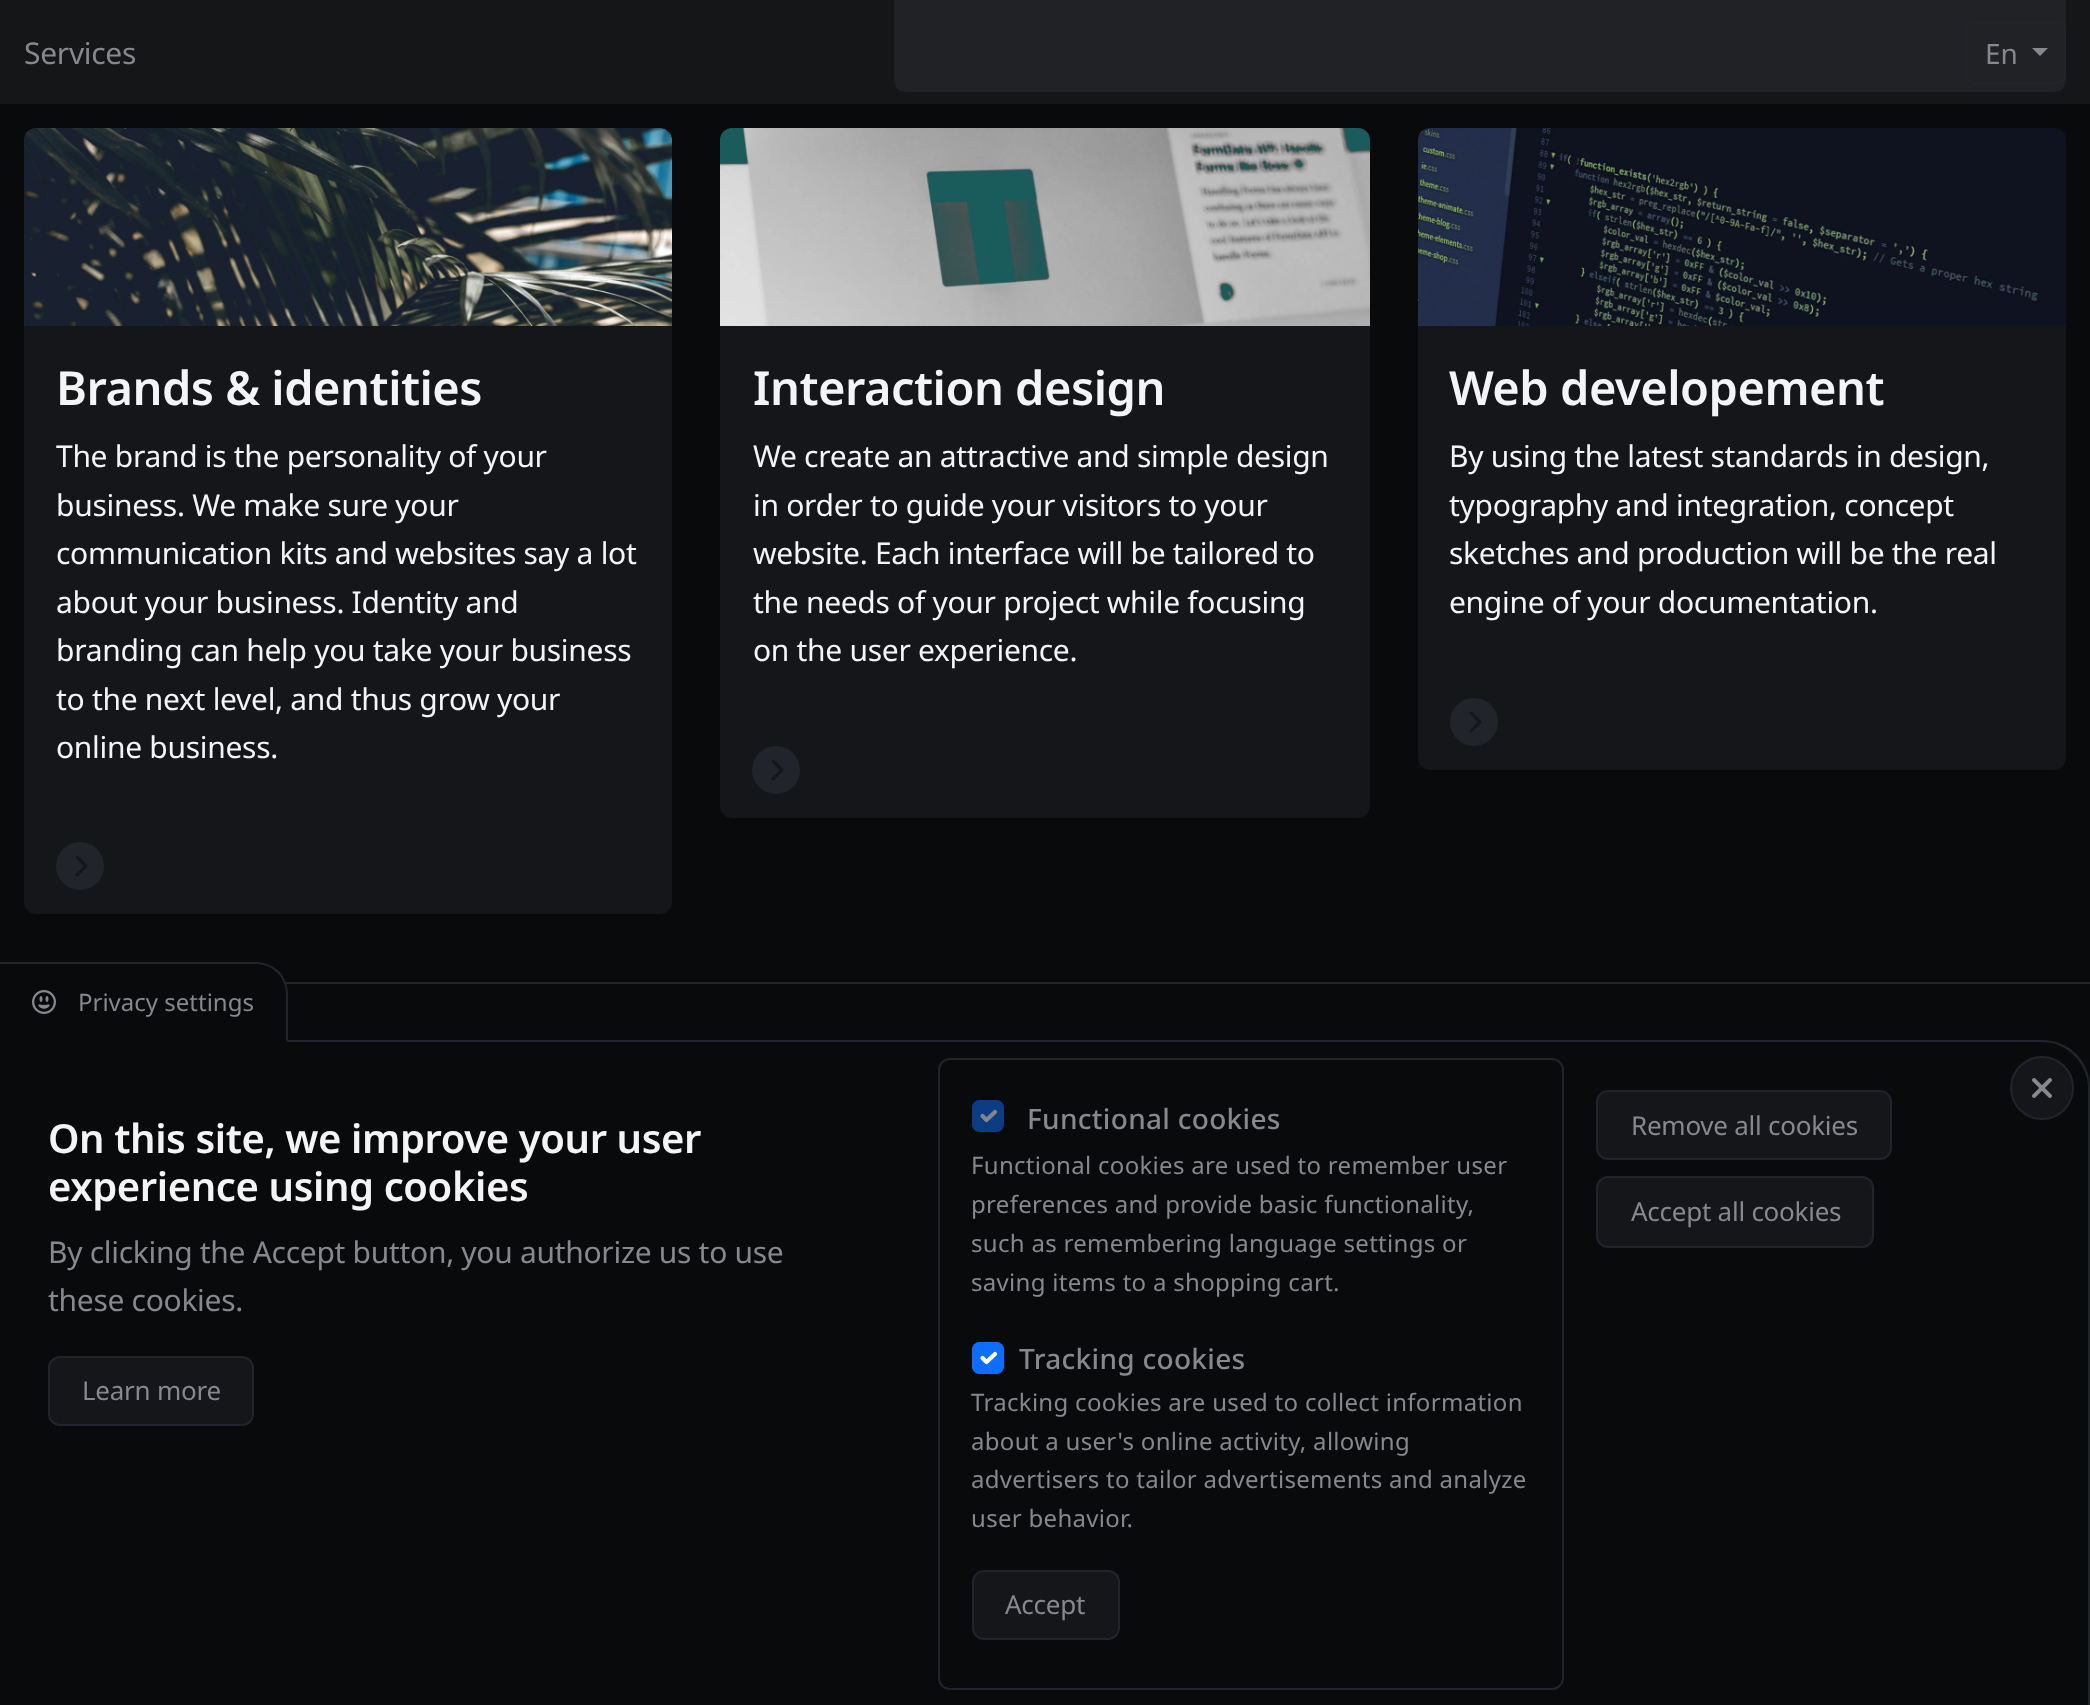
async function draw(canvas) {
	canvas.width = 2090;
	canvas.height = 1705;
	const c = canvas.getContext('2d');
	c.miterLimit = 4;
	c.fontKerning = 'normal';
	async function loadImage(src) {
		const img = new Image();
		img.src = src;
		await img.decode();
		return img;
	}

	c.fillStyle = '#090a0b';
	c.fillRect(0, 0, 2090, 1705);
	c.fillStyle = '#151617';
	c.fillRect(0, 0, 2090, 104);
	c.letterSpacing = '-0.3px';
	c.font = '30px Noto Sans';
	c.fillStyle = '#86888d';
	c.fillText('Services', 24, 64);
	c.fillStyle = '#202225';
	c.beginPath();
	c.roundRect(894, -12, 1172, 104, 12);
	c.fill();
	c.beginPath();
	c.roundRect(1967, 23, 98, 60, 7);
	c.strokeStyle = '#22242b';
	c.lineWidth = 2;
	c.stroke();
	c.letterSpacing = '0px';
	c.font = '28px Noto Sans';
	c.fillStyle = '#86888d';
	c.fillText('En', 1985, 64);
	c.beginPath();
	c.moveTo(2032, 48);
	c.lineTo(2048, 48);
	c.lineTo(2040, 56);
	c.closePath();
	c.fill();
	c.fillStyle = '#14161a';
	c.beginPath();
	c.roundRect(24, 128, 648, 786, 12);
	c.fill();
	c.drawImage(await loadImage('img1.png'), 24, 128, 648, 198);
	c.letterSpacing = '-0.5px';
	c.font = '600 47px Noto Sans';
	c.fillStyle = '#f4f4f6';
	c.fillText('Brands & identities', 56, 405);
	c.letterSpacing = '-0.3px';
	c.font = '30px Noto Sans';
	for (const [text, x, y] of [
		['The brand is the personality of your', 56, 467],
		['business. We make sure your', 56, 516],
		['communication kits and websites say a lot', 56, 564],
		['about your business. Identity and', 56, 613],
		['branding can help you take your business', 56, 661],
		['to the next level, and thus grow your', 56, 710],
		['online business.', 56, 758],
	]) {
		c.fillText(text, x, y);
	}
	c.fillStyle = '#22242b';
	c.beginPath();
	c.arc(80, 866, 24, 0, 2 * Math.PI);
	c.fill();
	c.drawImage(await loadImage('img2.png'), 75, 855, 13, 22);
	c.fillStyle = '#14161a';
	c.beginPath();
	c.roundRect(720, 128, 650, 690, 12);
	c.fill();
	c.drawImage(await loadImage('img3.png'), 720, 128, 650, 198);
	c.letterSpacing = '-0.5px';
	c.font = '600 47px Noto Sans';
	c.fillStyle = '#f4f4f6';
	c.fillText('Interaction design', 753, 405);
	c.letterSpacing = '-0.3px';
	c.font = '30px Noto Sans';
	for (const [text, x, y] of [
		['We create an attractive and simple design', 753, 467],
		['in order to guide your visitors to your', 753, 516],
		['website. Each interface will be tailored to', 753, 564],
		['the needs of your project while focusing', 753, 613],
		['on the user experience.', 753, 661],
	]) {
		c.fillText(text, x, y);
	}
	c.fillStyle = '#22242b';
	c.beginPath();
	c.arc(776, 770, 24, 0, 2 * Math.PI);
	c.fill();
	c.drawImage(await loadImage('img2.png'), 771, 759, 13, 22);
	c.fillStyle = '#14161a';
	c.beginPath();
	c.roundRect(1418, 128, 648, 642, 12);
	c.fill();
	c.drawImage(await loadImage('img4.png'), 1418, 128, 648, 198);
	c.letterSpacing = '-0.5px';
	c.font = '600 47px Noto Sans';
	c.fillStyle = '#f4f4f6';
	c.fillText('Web developement', 1449, 405);
	c.letterSpacing = '-0.3px';
	c.font = '30px Noto Sans';
	for (const [text, x, y] of [
		['By using the latest standards in design,', 1449, 467],
		['typography and integration, concept', 1449, 516],
		['sketches and production will be the real', 1449, 564],
		['engine of your documentation.', 1449, 613],
	]) {
		c.fillText(text, x, y);
	}
	c.fillStyle = '#22242b';
	c.beginPath();
	c.arc(1474, 722, 24, 0, 2 * Math.PI);
	c.fill();
	c.drawImage(await loadImage('img2.png'), 1469, 711, 13, 22);
	c.fillRect(283, 982, 1807, 2);
	c.fillStyle = '#090a0b';
	c.beginPath();
	c.roundRect(0, 964, 286, 76, [0, 30, 0, 0]);
	c.fill();
	c.fillStyle = '#22242b';
	c.beginPath();
	c.moveTo(0, 962);
	c.lineTo(0, 964);
	c.lineTo(256, 964);
	c.bezierCurveTo(264, 964, 272, 967, 277, 973);
	c.lineTo(279, 971);
	c.bezierCurveTo(273, 966, 265, 962, 256, 962);
	c.closePath();
	c.fill();
	c.beginPath();
	c.moveTo(0, 1040);
	c.lineTo(2042, 1040);
	c.bezierCurveTo(2069, 1040, 2090, 1061, 2090, 1088);
	c.lineTo(2090, 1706);
	c.lineTo(0, 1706);
	c.closePath();
	c.moveTo(0, 1042);
	c.lineTo(2042, 1042);
	c.bezierCurveTo(2067, 1042, 2088, 1063, 2088, 1088);
	c.lineTo(2088, 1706);
	c.lineTo(0, 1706);
	c.closePath();
	c.fill('evenodd');
	c.beginPath();
	c.moveTo(286, 1040);
	c.lineTo(286, 994);
	c.bezierCurveTo(286, 986, 283, 978, 277, 973);
	c.lineTo(279, 971);
	c.bezierCurveTo(284, 977, 288, 985, 288, 994);
	c.lineTo(288, 1042);
	c.closePath();
	c.fill();
	c.fillStyle = '#090a0b';
	c.beginPath();
	c.moveTo(288, 1042);
	c.lineTo(286, 1040);
	c.lineTo(0, 1040);
	c.lineTo(0, 1042);
	c.closePath();
	c.fill();
	c.drawImage(await loadImage('img5.png'), 32, 990, 24, 24);
	c.letterSpacing = '0px';
	c.font = '24px Noto Sans';
	c.fillStyle = '#86888d';
	c.fillText('Privacy settings', 78, 1011);
	c.fillStyle = '#14161a';
	c.beginPath();
	c.arc(2042, 1088, 31, 0, 2 * Math.PI);
	c.fill();
	c.stroke();
	c.drawImage(await loadImage('img6.png'), 2032, 1078, 20, 20);
	c.letterSpacing = '-0.4px';
	c.font = '600 40px Noto Sans';
	c.fillStyle = '#f4f4f6';
	c.fillText('On this site, we improve your user', 48, 1153);
	c.fillText('experience using cookies', 48, 1201);
	c.letterSpacing = '-0.3px';
	c.font = '30px Noto Sans';
	c.fillStyle = '#86888d';
	c.fillText('By clicking the Accept button, you authorize us to use', 48, 1263);
	c.fillText('these cookies.', 48, 1311);
	c.fillStyle = '#14161a';
	c.beginPath();
	c.roundRect(49, 1357, 204, 68, 11);
	c.fill();
	c.stroke();
	c.letterSpacing = '-0.25px';
	c.font = '26px Noto Sans';
	c.fillStyle = '#86888d';
	c.fillText('Learn more', 82, 1400);
	c.beginPath();
	c.roundRect(939, 1059, 624, 630, 11);
	c.stroke();
	c.fillStyle = '#0b3c84';
	c.beginPath();
	c.roundRect(972, 1100, 32, 32, 8);
	c.fill();
	c.beginPath();
	c.moveTo(982.5, 1116);
	c.lineTo(986.5, 1120);
	c.lineTo(995, 1112);
	c.strokeStyle = '#848585';
	c.lineWidth = 4.2;
	c.lineCap = 'round';
	c.lineJoin = 'round';
	c.stroke();
	c.beginPath();
	c.roundRect(973, 1101, 30, 30, 7);
	c.strokeStyle = '#0b3c84';
	c.lineWidth = 2;
	c.lineJoin = 'miter';
	c.stroke();
	c.letterSpacing = '0.3px';
	c.font = '500 28px Noto Sans';
	c.fillStyle = '#86888d';
	c.fillText('Functional cookies', 1027, 1129);
	c.font = '24px Noto Sans';
	for (const [text, x, y] of [
		['Functional cookies are used to remember user', 971, 1174],
		['preferences and provide basic functionality,', 971, 1213],
		['such as remembering language settings or', 971, 1252],
		['saving items to a shopping cart.', 971, 1291],
	]) {
		c.fillText(text, x, y);
	}
	c.fillStyle = '#0d6efd';
	c.beginPath();
	c.roundRect(972, 1342, 32, 32, 8);
	c.fill();
	c.beginPath();
	c.moveTo(982.5, 1358);
	c.lineTo(986.5, 1362);
	c.lineTo(995, 1354);
	c.strokeStyle = '#fff';
	c.lineWidth = 4.2;
	c.lineJoin = 'round';
	c.stroke();
	c.beginPath();
	c.roundRect(973, 1343, 30, 30, 7);
	c.strokeStyle = '#0d6efd';
	c.lineWidth = 2;
	c.lineJoin = 'miter';
	c.stroke();
	c.font = '500 28px Noto Sans';
	c.fillStyle = '#86888d';
	c.fillText('Tracking cookies', 1019, 1369);
	c.font = '24px Noto Sans';
	for (const [text, x, y] of [
		['Tracking cookies are used to collect information', 971, 1411],
		['about a user\'s online activity, allowing', 971, 1450],
		['advertisers to tailor advertisements and analyze', 971, 1488],
		['user behavior.', 971, 1527],
	]) {
		c.fillText(text, x, y);
	}
	c.fillStyle = '#14161a';
	c.beginPath();
	c.roundRect(973, 1571, 146, 68, 11);
	c.fill();
	c.strokeStyle = '#22242b';
	c.stroke();
	c.letterSpacing = '-0.25px';
	c.font = '26px Noto Sans';
	c.fillStyle = '#86888d';
	c.fillText('Accept', 1005, 1614);
	c.fillStyle = '#14161a';
	c.beginPath();
	c.roundRect(1597, 1091, 294, 68, 11);
	c.fill();
	c.stroke();
	c.fillStyle = '#86888d';
	c.fillText('Remove all cookies', 1631, 1135);
	c.fillStyle = '#14161a';
	c.beginPath();
	c.roundRect(1597, 1177, 276, 70, 11);
	c.fill();
	c.stroke();
	c.fillStyle = '#86888d';
	c.fillText('Accept all cookies', 1631, 1221);
}

draw(document.querySelector('canvas'));
